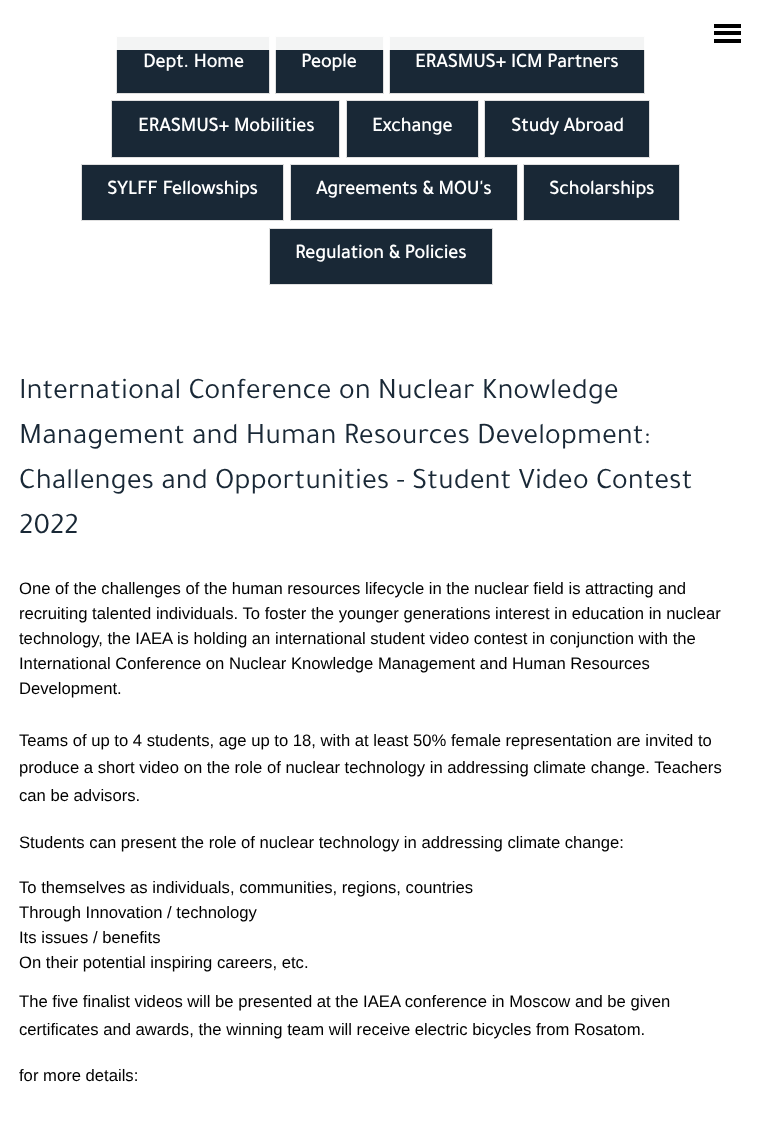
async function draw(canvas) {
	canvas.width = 761;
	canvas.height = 1123;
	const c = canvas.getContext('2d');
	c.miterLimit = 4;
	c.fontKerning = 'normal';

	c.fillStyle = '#fff';
	c.fillRect(0, 0, 761, 1123);
	c.fillStyle = '#192836';
	c.beginPath();
	c.rect(116.5, 36.5, 153, 57);
	c.fill();
	c.strokeStyle = '#e0e0e0';
	c.stroke();
	c.beginPath();
	c.rect(275.5, 36.5, 108, 57);
	c.fill();
	c.stroke();
	c.beginPath();
	c.rect(389.5, 36.5, 255, 57);
	c.fill();
	c.stroke();
	for (const [x, y, w, h, color] of [
		[116, 36, 529, 14, '#fffffff2'],
		[714, 24, 27, 4, '#000'],
		[714, 31, 27, 4, '#000'],
		[714, 39, 27, 4, '#000'],
	]) {
		c.fillStyle = color;
		c.fillRect(x, y, w, h);
	}
	c.font = 'bold 20px Tajawal';
	c.fillStyle = '#fff';
	for (const [text, x, y] of [
		['Dept. Home', 143, 67],
		['People', 301, 67],
		['ERASMUS+ ICM Partners', 415, 67],
	]) {
		c.fillText(text, x, y);
	}
	c.fillStyle = '#192836';
	c.beginPath();
	c.rect(111.5, 100.5, 228, 57);
	c.fill();
	c.stroke();
	c.fillStyle = '#fff';
	c.fillText('ERASMUS+ Mobilities', 138, 131);
	c.fillStyle = '#192836';
	c.beginPath();
	c.rect(346.5, 100.5, 132, 57);
	c.fill();
	c.stroke();
	c.fillStyle = '#fff';
	c.fillText('Exchange', 372, 131);
	c.fillStyle = '#192836';
	c.beginPath();
	c.rect(484.5, 100.5, 165, 57);
	c.fill();
	c.stroke();
	c.fillStyle = '#fff';
	c.fillText('Study Abroad', 511, 131);
	c.fillStyle = '#192836';
	c.beginPath();
	c.rect(81.5, 164.5, 202, 56);
	c.fill();
	c.stroke();
	c.fillStyle = '#fff';
	c.fillText('SYLFF Fellowships', 107, 194);
	c.fillStyle = '#192836';
	c.beginPath();
	c.rect(290.5, 164.5, 227, 56);
	c.fill();
	c.stroke();
	c.fillStyle = '#fff';
	c.fillText('Agreements & MOU\'s', 316, 194);
	c.fillStyle = '#192836';
	c.beginPath();
	c.rect(523.5, 164.5, 156, 56);
	c.fill();
	c.stroke();
	c.fillStyle = '#fff';
	c.fillText('Scholarships', 549, 194);
	c.fillStyle = '#192836';
	c.beginPath();
	c.rect(269.5, 228.5, 223, 56);
	c.fill();
	c.stroke();
	c.fillStyle = '#fff';
	c.fillText('Regulation & Policies', 295, 258);
	c.font = '30px Tajawal';
	c.fillStyle = '#192836';
	for (const [text, x, y] of [
		['International Conference on Nuclear Knowledge', 19, 398],
		['Management and Human Resources Development:', 19, 443],
		['Challenges and Opportunities - Student Video Contest', 19, 488],
		['2022', 19, 533],
	]) {
		c.fillText(text, x, y);
	}
	c.font = '16.65px Liberation Sans';
	c.fillStyle = '#000';
	for (const [text, x, y] of [
		['One of the challenges of the human resources lifecycle in the nuclear field is attracting and', 19, 594],
		['recruiting talented individuals. To foster the younger generations interest in education in nuclear', 19, 619],
		['technology, the IAEA is holding an international student video contest in conjunction with the', 19, 644],
		['International Conference on Nuclear Knowledge Management and Human Resources', 19, 669],
		['Development.', 19, 694],
		['Teams of up to 4 students, age up to 18, with at least 50% female representation are invited to', 19, 746],
		['produce a short video on the role of nuclear technology in addressing climate change. Teachers', 19, 773],
		['can be advisors.', 19, 801],
		['Students can present the role of nuclear technology in addressing climate change:', 19, 848],
		['To themselves as individuals, communities, regions, countries', 19, 893],
		['Through Innovation / technology', 19, 918],
		['Its issues / benefits', 19, 943],
		['On their potential inspiring careers, etc.', 19, 968],
		['The five finalist videos will be presented at the IAEA conference in Moscow and be given', 19, 1007],
		['certificates and awards, the winning team will receive electric bicycles from Rosatom.', 19, 1035],
		['for more details:', 19, 1081],
	]) {
		c.fillText(text, x, y);
	}
}

draw(document.querySelector('canvas'));
